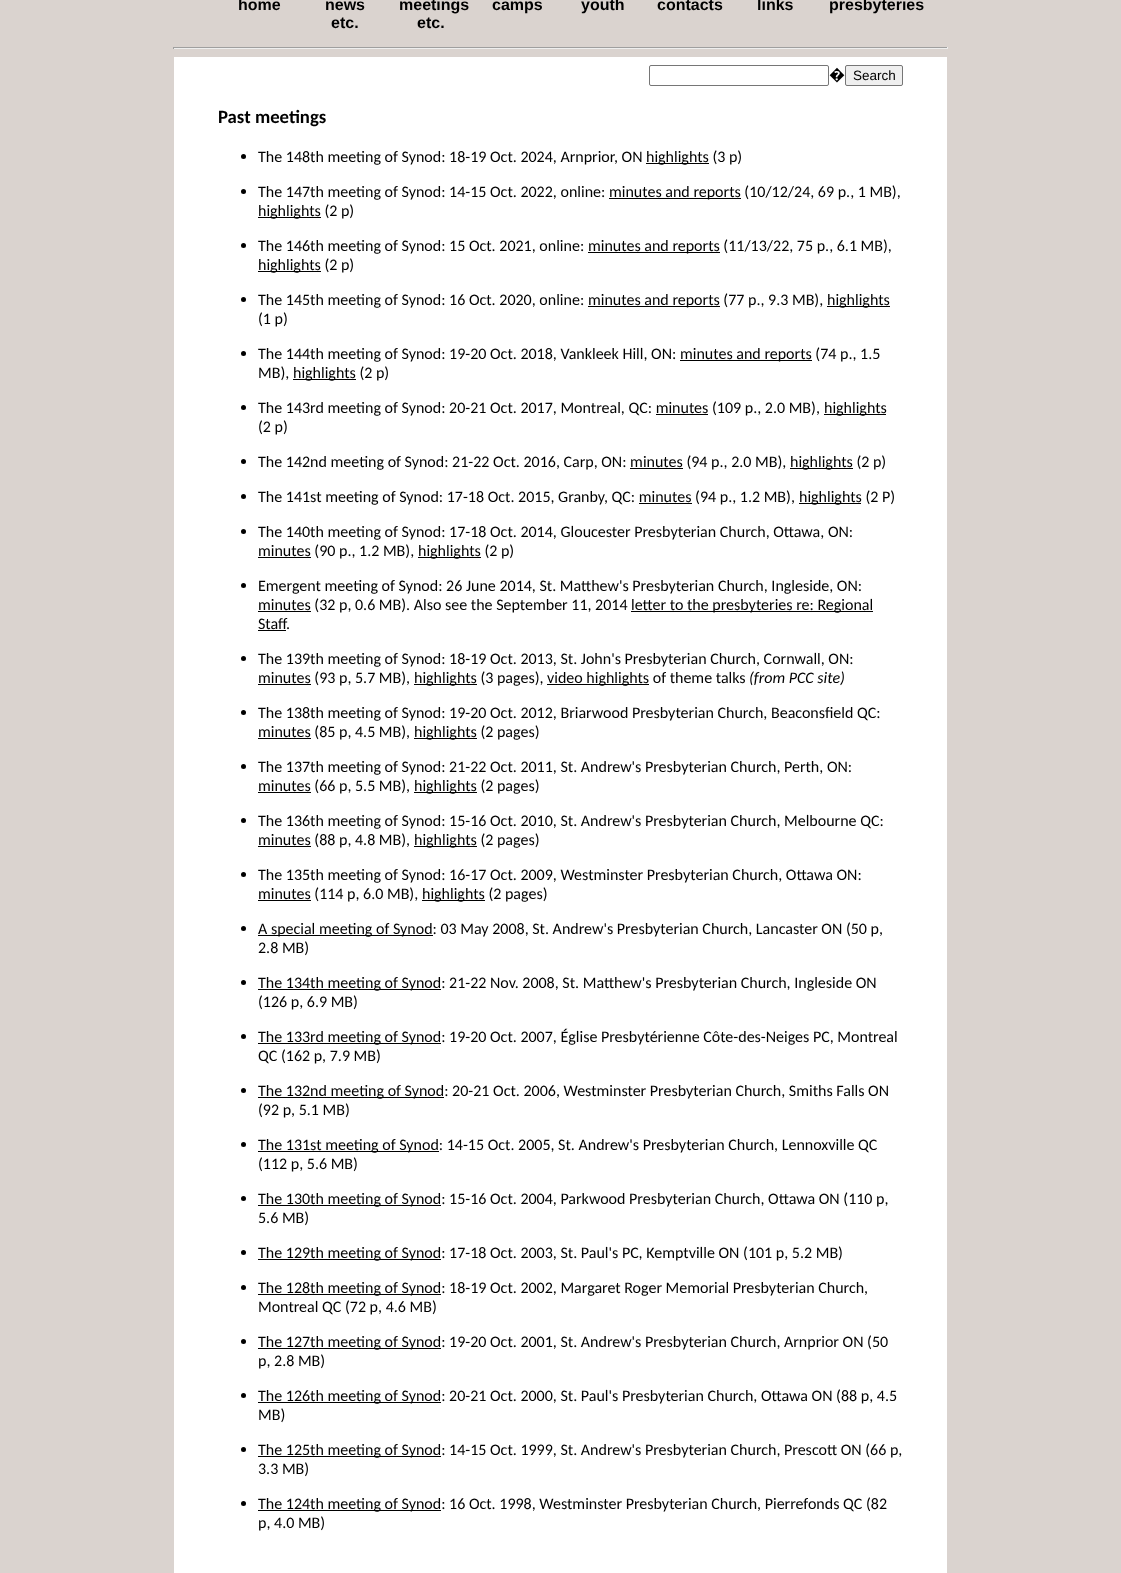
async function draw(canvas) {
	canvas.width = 1121;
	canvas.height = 1573;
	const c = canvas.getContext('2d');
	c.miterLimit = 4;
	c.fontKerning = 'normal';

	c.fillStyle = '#dad3cf';
	c.fillRect(0, 0, 1121, 1573);
	c.font = 'bold 16px Liberation Sans';
	c.fillStyle = '#000';
	for (const [text, x, y] of [
		['home', 238, 10],
		['news', 325, 10],
		['etc.', 331, 28],
		['meetings', 399, 10],
		['etc.', 417, 28],
		['camps', 492, 10],
		['youth', 581, 10],
		['contacts', 657, 10],
		['links', 757, 10],
		['presbyteries', 829, 10],
	]) {
		c.fillText(text, x, y);
	}
	for (const [x, y, w, h, color] of [
		[173, 47, 775, 1, '#9f9f9f'],
		[947, 47, 1, 2, '#eee'],
		[173, 48, 775, 1, '#eee'],
		[173, 47, 1, 2, '#9f9f9f'],
		[174, 57, 773, 1516, '#fff'],
	]) {
		c.fillStyle = color;
		c.fillRect(x, y, w, h);
	}
	c.beginPath();
	c.roundRect(649.5, 65.5, 179, 20, 1.5);
	c.strokeStyle = '#767676';
	c.stroke();
	c.font = '16px Noto Sans';
	c.fillStyle = '#000';
	c.fillText('�', 829, 80);
	c.fillStyle = '#efefef';
	c.beginPath();
	c.roundRect(845.5, 65.5, 57, 20, 1.5);
	c.fill();
	c.stroke();
	c.font = '13.5px Liberation Sans';
	c.fillStyle = '#000';
	c.fillText('Search', 853, 80);
	c.font = 'bold 18.75px Carlito';
	c.fillText('Past meetings', 218, 123);
	c.beginPath();
	c.arc(243.5, 156.5, 2.5, 0, 2 * Math.PI);
	c.fill();
	c.font = '16px Carlito';
	c.fillText('The 148th meeting of Synod: 18-19 Oct. 2024, Arnprior, ON', 258, 162);
	c.fillRect(646, 163, 63, 1);
	c.fillText('highlights (3 p)', 646, 162);
	c.beginPath();
	c.arc(243.5, 191.5, 2.5, 0, 2 * Math.PI);
	c.fill();
	c.fillText('The 147th meeting of Synod: 14-15 Oct. 2022, online:', 258, 197);
	c.fillRect(609, 198, 132, 1);
	c.fillText('minutes and reports (10/12/24, 69 p., 1 MB),', 609, 197);
	c.fillRect(258, 217, 63, 1);
	c.fillText('highlights (2 p)', 258, 216);
	c.beginPath();
	c.arc(243.5, 245.5, 2.5, 0, 2 * Math.PI);
	c.fill();
	c.fillText('The 146th meeting of Synod: 15 Oct. 2021, online:', 258, 251);
	c.fillRect(588, 252, 132, 1);
	c.fillText('minutes and reports (11/13/22, 75 p., 6.1 MB),', 588, 251);
	c.fillRect(258, 271, 63, 1);
	c.fillText('highlights (2 p)', 258, 270);
	c.beginPath();
	c.arc(243.5, 299.5, 2.5, 0, 2 * Math.PI);
	c.fill();
	c.fillText('The 145th meeting of Synod: 16 Oct. 2020, online:', 258, 305);
	c.fillRect(588, 306, 132, 1);
	c.fillText('minutes and reports (77 p., 9.3 MB),', 588, 305);
	c.fillRect(827, 306, 63, 1);
	c.fillText('highlights', 827, 305);
	c.fillText('(1 p)', 258, 324);
	c.beginPath();
	c.arc(243.5, 353.5, 2.5, 0, 2 * Math.PI);
	c.fill();
	c.fillText('The 144th meeting of Synod: 19-20 Oct. 2018, Vankleek Hill, ON:', 258, 359);
	c.fillRect(680, 360, 132, 1);
	c.fillText('minutes and reports (74 p., 1.5', 680, 359);
	c.fillText('MB),', 258, 378);
	c.fillRect(293, 379, 63, 1);
	c.fillText('highlights (2 p)', 293, 378);
	c.beginPath();
	c.arc(243.5, 407.5, 2.5, 0, 2 * Math.PI);
	c.fill();
	c.fillText('The 143rd meeting of Synod: 20-21 Oct. 2017, Montreal, QC: minutes (109 p., 2.0 MB),', 258, 413);
	c.fillRect(824, 414, 62, 1);
	c.fillText('highlights', 824, 413);
	c.fillRect(656, 414, 52, 1);
	c.fillText('(2 p)', 258, 432);
	c.beginPath();
	c.arc(243.5, 461.5, 2.5, 0, 2 * Math.PI);
	c.fill();
	c.fillText('The 142nd meeting of Synod: 21-22 Oct. 2016, Carp, ON: minutes (94 p., 2.0 MB),', 258, 467);
	c.fillRect(790, 468, 63, 1);
	c.fillText('highlights (2 p)', 790, 467);
	c.fillRect(630, 468, 53, 1);
	c.beginPath();
	c.arc(243.5, 496.5, 2.5, 0, 2 * Math.PI);
	c.fill();
	c.fillText('The 141st meeting of Synod: 17-18 Oct. 2015, Granby, QC: minutes (94 p., 1.2 MB),', 258, 502);
	c.fillRect(799, 503, 62, 1);
	c.fillText('highlights (2 P)', 799, 502);
	c.fillRect(639, 503, 53, 1);
	c.beginPath();
	c.arc(243.5, 531.5, 2.5, 0, 2 * Math.PI);
	c.fill();
	c.fillText('The 140th meeting of Synod: 17-18 Oct. 2014, Gloucester Presbyterian Church, Ottawa, ON:', 258, 537);
	c.fillRect(258, 557, 53, 1);
	c.fillText('minutes (90 p., 1.2 MB),', 258, 556);
	c.fillRect(418, 557, 63, 1);
	c.fillText('highlights (2 p)', 418, 556);
	c.beginPath();
	c.arc(243.5, 585.5, 2.5, 0, 2 * Math.PI);
	c.fill();
	c.fillText('Emergent meeting of Synod: 26 June 2014, St. Matthew\'s Presbyterian Church, Ingleside, ON:', 258, 591);
	c.fillRect(258, 611, 53, 1);
	c.fillText('minutes (32 p, 0.6 MB). Also see the September 11, 2014', 258, 610);
	c.fillRect(631, 611, 242, 1);
	c.fillText('letter to the presbyteries re: Regional', 631, 610);
	c.fillText('Staff', 258, 629);
	c.fillRect(258, 630, 28, 1);
	c.fillText('.', 286, 629);
	c.beginPath();
	c.arc(243.5, 658.5, 2.5, 0, 2 * Math.PI);
	c.fill();
	c.fillText('The 139th meeting of Synod: 18-19 Oct. 2013, St. John\'s Presbyterian Church, Cornwall, ON:', 258, 664);
	c.fillRect(258, 684, 53, 1);
	c.fillText('minutes (93 p, 5.7 MB),', 258, 683);
	c.fillRect(414, 684, 63, 1);
	c.fillText('highlights (3 pages),', 414, 683);
	c.fillRect(547, 684, 102, 1);
	c.fillText('video highlights of theme talks', 547, 683);
	c.font = 'italic 16px Carlito';
	c.fillText('(from PCC site)', 749, 683);
	c.beginPath();
	c.arc(243.5, 712.5, 2.5, 0, 2 * Math.PI);
	c.fill();
	c.font = '16px Carlito';
	c.fillText('The 138th meeting of Synod: 19-20 Oct. 2012, Briarwood Presbyterian Church, Beaconsfield QC:', 258, 718);
	c.fillRect(258, 738, 53, 1);
	c.fillText('minutes (85 p, 4.5 MB),', 258, 737);
	c.fillRect(414, 738, 63, 1);
	c.fillText('highlights (2 pages)', 414, 737);
	c.beginPath();
	c.arc(243.5, 766.5, 2.5, 0, 2 * Math.PI);
	c.fill();
	c.fillText('The 137th meeting of Synod: 21-22 Oct. 2011, St. Andrew\'s Presbyterian Church, Perth, ON:', 258, 772);
	c.fillRect(258, 792, 53, 1);
	c.fillText('minutes (66 p, 5.5 MB),', 258, 791);
	c.fillRect(414, 792, 63, 1);
	c.fillText('highlights (2 pages)', 414, 791);
	c.beginPath();
	c.arc(243.5, 820.5, 2.5, 0, 2 * Math.PI);
	c.fill();
	c.fillText('The 136th meeting of Synod: 15-16 Oct. 2010, St. Andrew\'s Presbyterian Church, Melbourne QC:', 258, 826);
	c.fillRect(258, 846, 53, 1);
	c.fillText('minutes (88 p, 4.8 MB),', 258, 845);
	c.fillRect(414, 846, 63, 1);
	c.fillText('highlights (2 pages)', 414, 845);
	c.beginPath();
	c.arc(243.5, 874.5, 2.5, 0, 2 * Math.PI);
	c.fill();
	c.fillText('The 135th meeting of Synod: 16-17 Oct. 2009, Westminster Presbyterian Church, Ottawa ON:', 258, 880);
	c.fillRect(258, 900, 53, 1);
	c.fillText('minutes (114 p, 6.0 MB),', 258, 899);
	c.fillRect(422, 900, 63, 1);
	c.fillText('highlights (2 pages)', 422, 899);
	c.beginPath();
	c.arc(243.5, 928.5, 2.5, 0, 2 * Math.PI);
	c.fill();
	c.fillRect(258, 935, 175, 1);
	c.fillText('A special meeting of Synod: 03 May 2008, St. Andrew\'s Presbyterian Church, Lancaster ON (50 p,', 258, 934);
	c.fillText('2.8 MB)', 258, 953);
	c.beginPath();
	c.arc(243.5, 982.5, 2.5, 0, 2 * Math.PI);
	c.fill();
	c.fillRect(258, 989, 183, 1);
	c.fillText('The 134th meeting of Synod: 21-22 Nov. 2008, St. Matthew\'s Presbyterian Church, Ingleside ON', 258, 988);
	c.fillText('(126 p, 6.9 MB)', 258, 1007);
	c.beginPath();
	c.arc(243.5, 1036.5, 2.5, 0, 2 * Math.PI);
	c.fill();
	c.fillRect(258, 1043, 183, 1);
	c.fillText('The 133rd meeting of Synod: 19-20 Oct. 2007, Église Presbytérienne Côte-des-Neiges PC, Montreal', 258, 1042);
	c.fillText('QC (162 p, 7.9 MB)', 258, 1061);
	c.beginPath();
	c.arc(243.5, 1090.5, 2.5, 0, 2 * Math.PI);
	c.fill();
	c.fillRect(258, 1097, 186, 1);
	c.fillText('The 132nd meeting of Synod: 20-21 Oct. 2006, Westminster Presbyterian Church, Smiths Falls ON', 258, 1096);
	c.fillText('(92 p, 5.1 MB)', 258, 1115);
	c.beginPath();
	c.arc(243.5, 1144.5, 2.5, 0, 2 * Math.PI);
	c.fill();
	c.fillRect(258, 1151, 181, 1);
	c.fillText('The 131st meeting of Synod: 14-15 Oct. 2005, St. Andrew\'s Presbyterian Church, Lennoxville QC', 258, 1150);
	c.fillText('(112 p, 5.6 MB)', 258, 1169);
	c.beginPath();
	c.arc(243.5, 1198.5, 2.5, 0, 2 * Math.PI);
	c.fill();
	c.fillRect(258, 1205, 183, 1);
	c.fillText('The 130th meeting of Synod: 15-16 Oct. 2004, Parkwood Presbyterian Church, Ottawa ON (110 p,', 258, 1204);
	c.fillText('5.6 MB)', 258, 1223);
	c.beginPath();
	c.arc(243.5, 1252.5, 2.5, 0, 2 * Math.PI);
	c.fill();
	c.fillRect(258, 1259, 183, 1);
	c.fillText('The 129th meeting of Synod: 17-18 Oct. 2003, St. Paul\'s PC, Kemptville ON (101 p, 5.2 MB)', 258, 1258);
	c.beginPath();
	c.arc(243.5, 1287.5, 2.5, 0, 2 * Math.PI);
	c.fill();
	c.fillRect(258, 1294, 183, 1);
	c.fillText('The 128th meeting of Synod: 18-19 Oct. 2002, Margaret Roger Memorial Presbyterian Church,', 258, 1293);
	c.fillText('Montreal QC (72 p, 4.6 MB)', 258, 1312);
	c.beginPath();
	c.arc(243.5, 1341.5, 2.5, 0, 2 * Math.PI);
	c.fill();
	c.fillRect(258, 1348, 183, 1);
	c.fillText('The 127th meeting of Synod: 19-20 Oct. 2001, St. Andrew\'s Presbyterian Church, Arnprior ON (50', 258, 1347);
	c.fillText('p, 2.8 MB)', 258, 1366);
	c.beginPath();
	c.arc(243.5, 1395.5, 2.5, 0, 2 * Math.PI);
	c.fill();
	c.fillRect(258, 1402, 183, 1);
	c.fillText('The 126th meeting of Synod: 20-21 Oct. 2000, St. Paul\'s Presbyterian Church, Ottawa ON (88 p, 4.5', 258, 1401);
	c.fillText('MB)', 258, 1420);
	c.beginPath();
	c.arc(243.5, 1449.5, 2.5, 0, 2 * Math.PI);
	c.fill();
	c.fillRect(258, 1456, 183, 1);
	c.fillText('The 125th meeting of Synod: 14-15 Oct. 1999, St. Andrew\'s Presbyterian Church, Prescott ON (66 p,', 258, 1455);
	c.fillText('3.3 MB)', 258, 1474);
	c.beginPath();
	c.arc(243.5, 1503.5, 2.5, 0, 2 * Math.PI);
	c.fill();
	c.fillRect(258, 1510, 183, 1);
	c.fillText('The 124th meeting of Synod: 16 Oct. 1998, Westminster Presbyterian Church, Pierrefonds QC (82', 258, 1509);
	c.fillText('p, 4.0 MB)', 258, 1528);
}

draw(document.querySelector('canvas'));
